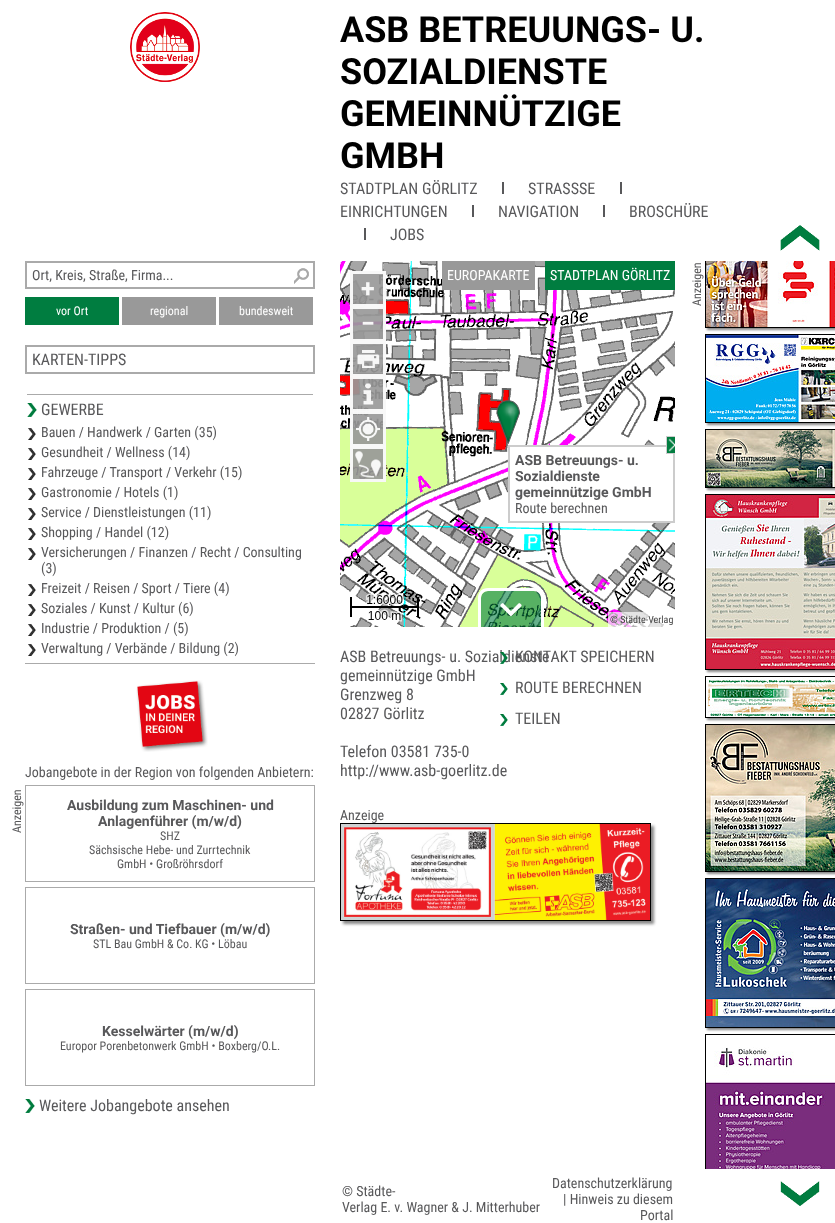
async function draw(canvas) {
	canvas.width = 835;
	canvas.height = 1223;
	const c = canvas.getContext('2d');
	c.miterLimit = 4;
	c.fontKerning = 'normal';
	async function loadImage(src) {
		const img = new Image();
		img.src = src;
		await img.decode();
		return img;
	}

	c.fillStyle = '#fff';
	c.fillRect(0, 0, 835, 1223);
	c.drawImage(await loadImage('img1.png'), 130, 12, 70, 70);
	c.font = 'bold 36px Roboto';
	c.fillStyle = '#000';
	for (const [text, x, y] of [
		['ASB BETREUUNGS- U.', 340, 42],
		['SOZIALDIENSTE', 340, 84],
		['GEMEINNÜTZIGE', 340, 126],
		['GMBH', 340, 168],
	]) {
		c.fillText(text, x, y);
	}
	c.font = '16px Roboto Condensed';
	c.fillStyle = '#58585a';
	c.fillText('STADTPLAN GÖRLITZ', 340, 194);
	c.fillRect(502, 182, 2, 12);
	c.fillText('STRASSSE', 528, 194);
	c.fillRect(620, 182, 2, 12);
	c.fillText('EINRICHTUNGEN', 340, 217);
	c.fillRect(472, 205, 2, 12);
	c.fillText('NAVIGATION', 498, 217);
	c.fillRect(603, 205, 2, 12);
	c.fillText('BROSCHÜRE', 629, 217);
	c.fillRect(364, 228, 2, 12);
	c.fillText('JOBS', 390, 240);
	c.drawImage(await loadImage('img2.png'), 294, 268, 15, 16);
	c.strokeStyle = '#aaa';
	c.lineWidth = 2;
	c.strokeRect(26, 262, 288, 26);
	c.font = '14px Roboto Condensed';
	c.fillText('Ort, Kreis, Straße, Firma...', 32, 280);
	c.fillStyle = '#007d40';
	c.fillRect(25, 297, 94, 28);
	c.font = '12px Roboto Condensed';
	c.fillStyle = '#fff';
	c.fillText('vor Ort', 56, 315);
	c.fillStyle = '#999';
	c.fillRect(122, 297, 94, 28);
	c.fillStyle = '#fff';
	c.fillText('regional', 150, 315);
	c.fillStyle = '#999';
	c.fillRect(219, 297, 94, 28);
	c.fillStyle = '#fff';
	c.fillText('bundesweit', 239, 315);
	c.strokeRect(26, 346, 288, 27);
	c.font = '16px Roboto Condensed';
	c.fillStyle = '#58585a';
	c.fillText('KARTEN-TIPPS', 32, 365);
	c.drawImage(await loadImage('img3.png'), 27, 403, 10, 14);
	c.fillStyle = '#aaa';
	c.fillRect(27, 394, 286, 1);
	c.fillStyle = '#58585a';
	c.fillText('GEWERBE', 41, 415);
	c.drawImage(await loadImage('img4.png'), 28, 428, 8, 12);
	c.font = '14px Roboto Condensed';
	c.fillText('Bauen / Handwerk / Garten (35)', 41, 437);
	c.drawImage(await loadImage('img4.png'), 28, 448, 8, 12);
	c.fillText('Gesundheit / Wellness (14)', 41, 457);
	c.drawImage(await loadImage('img4.png'), 28, 468, 8, 12);
	c.fillText('Fahrzeuge / Transport / Verkehr (15)', 41, 477);
	c.drawImage(await loadImage('img4.png'), 28, 488, 8, 12);
	c.fillText('Gastronomie / Hotels (1)', 41, 497);
	c.drawImage(await loadImage('img4.png'), 28, 508, 8, 12);
	c.fillText('Service / Dienstleistungen (11)', 41, 517);
	c.drawImage(await loadImage('img4.png'), 28, 528, 8, 12);
	c.fillText('Shopping / Handel (12)', 41, 537);
	c.drawImage(await loadImage('img4.png'), 28, 548, 8, 12);
	c.fillText('Versicherungen / Finanzen / Recht / Consulting', 41, 557);
	c.fillText('(3)', 41, 573);
	c.drawImage(await loadImage('img4.png'), 28, 584, 8, 12);
	c.fillText('Freizeit / Reisen / Sport / Tiere (4)', 41, 593);
	c.drawImage(await loadImage('img4.png'), 28, 604, 8, 12);
	c.fillText('Soziales / Kunst / Kultur (6)', 41, 613);
	c.drawImage(await loadImage('img4.png'), 28, 624, 8, 12);
	c.fillText('Industrie / Produktion / (5)', 41, 633);
	c.drawImage(await loadImage('img4.png'), 28, 644, 8, 12);
	c.fillText('Verwaltung / Verbände / Bildung (2)', 41, 653);
	c.fillText('Jobangebote in der Region von folgenden Anbietern:', 25, 777);
	c.drawImage(await loadImage('img5.png'), 136, 680, 72, 72);
	c.fillStyle = '#aaa';
	c.fillRect(25, 663, 290, 1);
	c.font = '12px Roboto Condensed';
	c.fillStyle = '#58585a';
	c.save();
	c.translate(21, 833);
	c.rotate(-90 * Math.PI / 180);
	c.fillText('Anzeigen', 0, 0);
	c.restore();
	c.lineWidth = 1;
	c.strokeRect(25.5, 785.5, 289, 96);
	c.font = 'bold 14px Roboto';
	c.fillText('Ausbildung zum Maschinen- und', 67, 810);
	c.fillText('Anlagenführer (m/w/d)', 98, 826);
	c.font = '12px Roboto Condensed';
	for (const [text, x, y] of [
		['SHZ', 160, 840],
		['Sächsische Hebe- und Zurrtechnik', 89, 854],
		['GmbH • Großröhrsdorf', 117, 868],
	]) {
		c.fillText(text, x, y);
	}
	c.strokeRect(25.5, 887.5, 289, 96);
	c.font = 'bold 14px Roboto';
	c.fillText('Straßen- und Tiefbauer (m/w/d)', 70, 934);
	c.font = '12px Roboto Condensed';
	c.fillText('STL Bau GmbH & Co. KG • Löbau', 93, 948);
	c.strokeRect(25.5, 989.5, 289, 96);
	c.font = 'bold 14px Roboto';
	c.fillText('Kesselwärter (m/w/d)', 102, 1036);
	c.font = '12px Roboto Condensed';
	c.fillText('Europor Porenbetonwerk GmbH • Boxberg/O.L.', 60, 1050);
	c.drawImage(await loadImage('img3.png'), 25, 1099, 10, 14);
	c.font = '16px Roboto Condensed';
	c.fillText('Weitere Jobangebote ansehen', 39, 1111);
	c.drawImage(await loadImage('img6.png'), 340, 261, 153, 204);
	c.drawImage(await loadImage('img7.png'), 493, 261, 182, 204);
	c.fillStyle = '#999';
	c.fillRect(442, 261, 93, 29);
	c.font = '14px Roboto Condensed';
	c.fillStyle = '#fff';
	c.fillText('EUROPAKARTE', 447, 280);
	c.fillStyle = '#007d40';
	c.fillRect(545, 261, 130, 29);
	c.fillStyle = '#fff';
	c.fillText('STADTPLAN GÖRLITZ', 550, 280);
	c.drawImage(await loadImage('img8.png'), 340, 465, 153, 162);
	c.drawImage(await loadImage('img9.png'), 493, 465, 182, 162);
	c.fillStyle = '#999999eb';
	c.fillRect(350, 271, 36, 36);
	c.strokeStyle = '#ffffffeb';
	c.lineWidth = 3;
	c.strokeRect(351.5, 272.5, 33, 33);
	c.font = 'bold 25px Roboto';
	c.fillStyle = '#f7f7f7';
	c.fillText('+', 361, 297);
	c.fillStyle = '#999999eb';
	c.fillRect(350, 306, 36, 36);
	c.strokeRect(351.5, 307.5, 33, 33);
	c.fillStyle = '#f7f7f7';
	c.fillText('−', 361, 332);
	c.fillStyle = '#999999eb';
	c.fillRect(350, 341, 36, 36);
	c.strokeRect(351.5, 342.5, 33, 33);
	c.drawImage(await loadImage('img10.png'), 357, 350, 23, 18);
	c.fillRect(350, 376, 36, 36);
	c.strokeRect(351.5, 377.5, 33, 33);
	c.drawImage(await loadImage('img11.png'), 363, 383, 11, 22);
	c.fillRect(350, 411, 36, 36);
	c.strokeRect(351.5, 412.5, 33, 33);
	c.drawImage(await loadImage('img12.png'), 356, 417, 24, 24);
	c.drawImage(await loadImage('img13.png'), 496, 400, 24, 44);
	c.fillRect(350, 446, 36, 36);
	c.strokeRect(351.5, 447.5, 33, 33);
	c.drawImage(await loadImage('img14.png'), 355, 451, 26, 27);
	c.fillStyle = '#fff';
	c.beginPath();
	c.rect(509, 446, 165, 76);
	c.fill();
	c.strokeStyle = '#ccc';
	c.lineWidth = 2;
	c.stroke();
	c.drawImage(await loadImage('img15.png'), 667, 437, 8, 16);
	c.save();
	c.beginPath();
	c.rect(340, 261, 335, 366);
	c.clip();
	c.lineWidth = 1;
	c.strokeRect(666.5, 436.5, 17, 17);
	c.restore();
	c.font = 'bold 14px Roboto';
	c.fillStyle = '#58585a';
	for (const [text, x, y] of [
		['ASB Betreuungs- u.', 515, 465],
		['Sozialdienste', 515, 481],
		['gemeinnützige GmbH', 515, 497],
	]) {
		c.fillText(text, x, y);
	}
	c.font = '14px Roboto Condensed';
	c.fillText('Route berechnen', 515, 513);
	c.drawImage(await loadImage('img16.png'), 350, 593, 69, 29);
	c.fillStyle = '#007d4099';
	c.beginPath();
	c.roundRect(481, 591, 60, 36, [7, 7, 0, 0]);
	c.fill();
	c.fillStyle = '#fff';
	c.beginPath();
	c.moveTo(488, 588);
	c.lineTo(534, 588);
	c.bezierCurveTo(540, 588, 544, 592, 544, 598);
	c.lineTo(544, 627);
	c.lineTo(478, 627);
	c.lineTo(478, 598);
	c.bezierCurveTo(478, 592, 482, 588, 488, 588);
	c.closePath();
	c.moveTo(488, 591);
	c.lineTo(534, 591);
	c.bezierCurveTo(538, 591, 541, 594, 541, 598);
	c.lineTo(541, 627);
	c.lineTo(481, 627);
	c.lineTo(481, 598);
	c.bezierCurveTo(481, 594, 484, 591, 488, 591);
	c.closePath();
	c.fill('evenodd');
	c.drawImage(await loadImage('img17.png'), 500, 603, 22, 14);
	c.fillStyle = '#ffffffb3';
	c.fillRect(608, 612, 56, 15);
	c.font = '10px Roboto Condensed';
	c.fillStyle = '#444';
	c.fillText('© Städte-Verlag', 610, 623);
	c.font = '16px Roboto Condensed';
	c.fillStyle = '#58585a';
	for (const [text, x, y] of [
		['ASB Betreuungs- u. Sozialdienste', 340, 662],
		['gemeinnützige GmbH', 340, 681],
		['Grenzweg 8', 340, 700],
		['02827 Görlitz', 340, 719],
		['Telefon 03581 735-0', 340, 757],
		['http://www.asb-goerlitz.de', 340, 776],
	]) {
		c.fillText(text, x, y);
	}
	c.drawImage(await loadImage('img18.png'), 500, 652, 8, 12);
	c.fillText('KONTAKT SPEICHERN', 515, 662);
	c.drawImage(await loadImage('img19.png'), 500, 683, 8, 12);
	c.fillText('ROUTE BERECHNEN', 515, 693);
	c.drawImage(await loadImage('img19.png'), 500, 714, 8, 12);
	c.fillText('TEILEN', 515, 724);
	c.font = '14px Roboto Condensed';
	c.fillText('Anzeige', 340, 820);
	c.fillStyle = '#888';
	c.filter = 'blur(1.5px)';
	c.beginPath();
	c.rect(343, 826, 311, 98);
	c.fill();
	c.filter = 'none';
	c.strokeStyle = '#000';
	c.lineWidth = 1;
	c.strokeRect(340.5, 823.5, 310, 97);
	c.drawImage(await loadImage('img20.png'), 341, 824, 309, 96);
	c.drawImage(await loadImage('img21.png'), 780, 225, 40, 26);
	c.save();
	c.beginPath();
	c.rect(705, 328, 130, 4);
	c.clip();
	c.filter = 'blur(1px)';
	c.beginPath();
	c.rect(707, 241, 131, 89);
	c.fill();
	c.filter = 'none';
	c.restore();
	c.font = '12px Roboto Condensed';
	c.fillStyle = '#58585a';
	c.save();
	c.translate(701, 306);
	c.rotate(-90 * Math.PI / 180);
	c.fillText('Anzeigen', 0, 0);
	c.restore();
	c.save();
	c.beginPath();
	c.rect(700, 261, 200, 908);
	c.clip();
	c.strokeRect(705.5, 239.5, 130, 88);
	c.restore();
	c.drawImage(await loadImage('img22.png'), 706, 261, 129, 66);
	c.fillStyle = '#888';
	c.filter = 'blur(1px)';
	c.beginPath();
	c.rect(707, 336, 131, 89);
	c.fill();
	c.filter = 'none';
	c.strokeRect(705.5, 334.5, 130, 88);
	c.drawImage(await loadImage('img23.png'), 706, 335, 129, 87);
	c.filter = 'blur(1px)';
	c.beginPath();
	c.rect(707, 431, 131, 59);
	c.fill();
	c.filter = 'none';
	c.strokeRect(705.5, 429.5, 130, 58);
	c.drawImage(await loadImage('img24.png'), 706, 430, 129, 57);
	c.filter = 'blur(1px)';
	c.beginPath();
	c.rect(707, 496, 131, 176);
	c.fill();
	c.filter = 'none';
	c.strokeRect(705.5, 494.5, 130, 175);
	c.drawImage(await loadImage('img25.png'), 706, 495, 129, 174);
	c.filter = 'blur(1px)';
	c.beginPath();
	c.rect(707, 678, 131, 42);
	c.fill();
	c.filter = 'none';
	c.strokeRect(705.5, 676.5, 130, 41);
	c.drawImage(await loadImage('img26.png'), 706, 677, 129, 40);
	c.filter = 'blur(1px)';
	c.beginPath();
	c.rect(707, 726, 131, 148);
	c.fill();
	c.filter = 'none';
	c.strokeRect(705.5, 724.5, 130, 147);
	c.drawImage(await loadImage('img27.png'), 706, 725, 129, 146);
	c.filter = 'blur(1px)';
	c.beginPath();
	c.rect(707, 880, 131, 150);
	c.fill();
	c.filter = 'none';
	c.strokeRect(705.5, 878.5, 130, 149);
	c.drawImage(await loadImage('img28.png'), 706, 879, 129, 148);
	c.drawImage(await loadImage('img30.png'), 780, 1181, 40, 25);
	c.save();
	c.beginPath();
	c.rect(700, 261, 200, 908);
	c.clip();
	c.strokeRect(705.5, 1034.5, 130, 181);
	c.restore();
	c.drawImage(await loadImage('img29.png'), 706, 1047, 129, 122);
	c.font = '14px Roboto Condensed';
	c.fillStyle = '#58585a';
	for (const [text, x, y] of [
		['© Städte-', 342, 1196],
		['Verlag E. v. Wagner & J. Mitterhuber', 342, 1212],
		['Datenschutzerklärung', 552, 1188],
		['| Hinweis zu diesem', 563, 1204],
		['Portal', 640, 1220],
	]) {
		c.fillText(text, x, y);
	}
}

draw(document.querySelector('canvas'));
